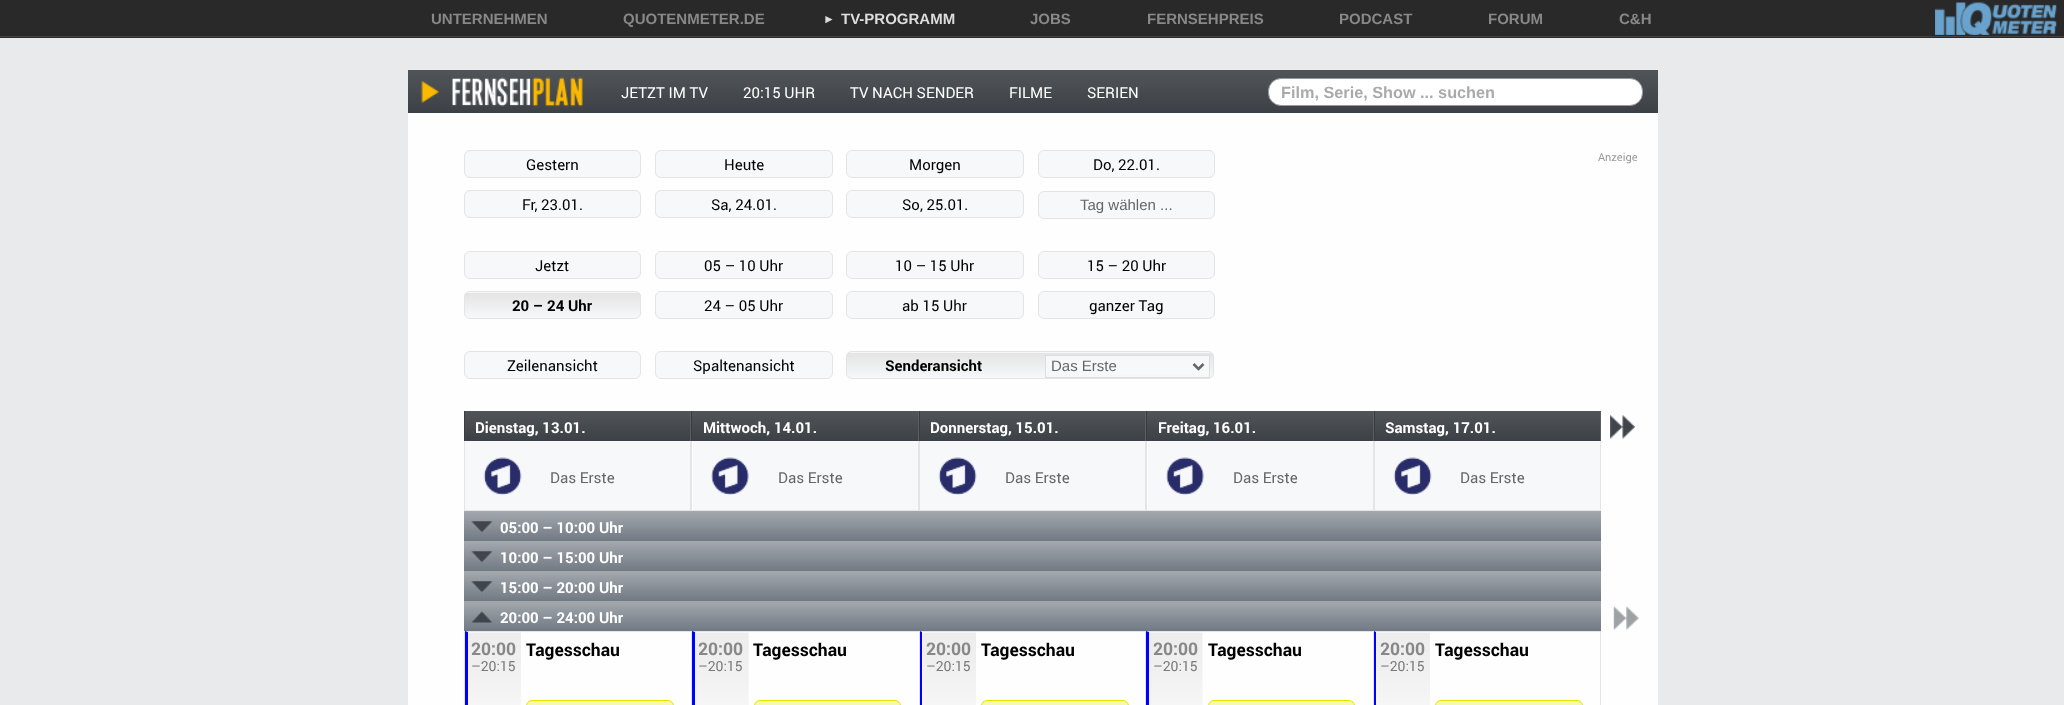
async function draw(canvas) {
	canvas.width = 2064;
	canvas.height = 705;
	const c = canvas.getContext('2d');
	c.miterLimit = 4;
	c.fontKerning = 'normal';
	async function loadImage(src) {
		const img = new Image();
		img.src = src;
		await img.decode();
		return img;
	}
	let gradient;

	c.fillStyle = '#e8eaec';
	c.fillRect(0, 0, 2064, 705);
	c.fillStyle = '#292929';
	c.fillRect(0, 0, 2064, 38);
	c.fillStyle = '#444';
	c.fillRect(0, 36, 2064, 1);
	c.font = 'bold 15px Liberation Sans';
	c.fillStyle = '#888';
	c.fillText('UNTERNEHMEN', 431, 24);
	c.fillText('QUOTENMETER.DE', 623, 24);
	c.font = '12px Liberation Sans';
	c.fillStyle = '#ddd';
	c.fillText('►', 823, 23);
	c.font = 'bold 15px Liberation Sans';
	c.fillText('TV-PROGRAMM', 841, 24);
	c.fillStyle = '#888';
	for (const [text, x, y] of [
		['JOBS', 1030, 24],
		['FERNSEHPREIS', 1147, 24],
		['PODCAST', 1339, 24],
		['FORUM', 1488, 24],
		['C&H', 1619, 24],
	]) {
		c.fillText(text, x, y);
	}
	c.drawImage(await loadImage('img1.png'), 1935, 2, 122, 33);
	c.fillStyle = '#fefefe';
	c.fillRect(408, 113, 1250, 592);
	gradient = c.createLinearGradient(1033, 70, 1033, 113);
	gradient.addColorStop(0, '#515558');
	gradient.addColorStop(1, '#3c4147');
	c.fillStyle = gradient;
	c.fillRect(408, 70, 1250, 43);
	c.drawImage(await loadImage('img2.png'), 420, 77, 163, 30);
	c.font = '15px Roboto';
	c.fillStyle = '#fff';
	for (const [text, x, y] of [
		['JETZT IM TV', 621, 98],
		['20:15 UHR', 743, 98],
		['TV NACH SENDER', 850, 98],
		['FILME', 1009, 98],
		['SERIEN', 1087, 98],
	]) {
		c.fillText(text, x, y);
	}
	c.beginPath();
	c.roundRect(1268.5, 78.5, 374, 27, 12.5);
	c.fill();
	c.strokeStyle = '#999';
	c.stroke();
	c.font = 'bold 16.25px Liberation Sans';
	c.fillStyle = '#aaa';
	c.fillText('Film, Serie, Show ... suchen', 1281, 98);
	c.fillStyle = '#f7f8fa';
	c.beginPath();
	c.roundRect(464.5, 150.5, 176, 27, 5.5);
	c.fill();
	c.strokeStyle = '#e4e4e4';
	c.stroke();
	c.font = '15px Roboto';
	c.fillStyle = '#000';
	c.fillText('Gestern', 526, 170);
	c.fillStyle = '#f7f8fa';
	c.beginPath();
	c.roundRect(655.5, 150.5, 177, 27, 5.5);
	c.fill();
	c.stroke();
	c.fillStyle = '#000';
	c.fillText('Heute', 724, 170);
	c.fillStyle = '#f7f8fa';
	c.beginPath();
	c.roundRect(846.5, 150.5, 177, 27, 5.5);
	c.fill();
	c.stroke();
	c.fillStyle = '#000';
	c.fillText('Morgen', 909, 170);
	c.fillStyle = '#f7f8fa';
	c.beginPath();
	c.roundRect(1038.5, 150.5, 176, 27, 5.5);
	c.fill();
	c.stroke();
	c.fillStyle = '#000';
	c.fillText('Do, 22.01.', 1093, 170);
	c.fillStyle = '#f7f8fa';
	c.beginPath();
	c.roundRect(464.5, 190.5, 176, 27, 5.5);
	c.fill();
	c.stroke();
	c.fillStyle = '#000';
	c.fillText('Fr, 23.01.', 522, 210);
	c.fillStyle = '#f7f8fa';
	c.beginPath();
	c.roundRect(655.5, 190.5, 177, 27, 5.5);
	c.fill();
	c.stroke();
	c.fillStyle = '#000';
	c.fillText('Sa, 24.01.', 711, 210);
	c.fillStyle = '#f7f8fa';
	c.beginPath();
	c.roundRect(846.5, 190.5, 177, 27, 5.5);
	c.fill();
	c.stroke();
	c.fillStyle = '#000';
	c.fillText('So, 25.01.', 902, 210);
	c.fillStyle = '#f7f8fa';
	c.beginPath();
	c.roundRect(1038.5, 191.5, 176, 27, 5.5);
	c.fill();
	c.stroke();
	c.font = '15px Liberation Sans';
	c.fillStyle = '#666';
	c.fillText('Tag wählen ...', 1080, 210);
	c.fillStyle = '#f7f8fa';
	c.beginPath();
	c.roundRect(464.5, 251.5, 176, 27, 5.5);
	c.fill();
	c.stroke();
	c.font = '15px Roboto';
	c.fillStyle = '#000';
	c.fillText('Jetzt', 535, 271);
	c.fillStyle = '#f7f8fa';
	c.beginPath();
	c.roundRect(655.5, 251.5, 177, 27, 5.5);
	c.fill();
	c.stroke();
	c.fillStyle = '#000';
	c.fillText('05 – 10 Uhr', 704, 271);
	c.fillStyle = '#f7f8fa';
	c.beginPath();
	c.roundRect(846.5, 251.5, 177, 27, 5.5);
	c.fill();
	c.stroke();
	c.fillStyle = '#000';
	c.fillText('10 – 15 Uhr', 895, 271);
	c.fillStyle = '#f7f8fa';
	c.beginPath();
	c.roundRect(1038.5, 251.5, 176, 27, 5.5);
	c.fill();
	c.stroke();
	c.fillStyle = '#000';
	c.fillText('15 – 20 Uhr', 1087, 271);
	c.save();
	c.beginPath();
	c.roundRect(464, 291, 177, 28, 6);
	c.clip();
	gradient = c.createLinearGradient(553, 268, 553, 293);
	gradient.addColorStop(0, '#e4e4e4');
	gradient.addColorStop(1, '#f7f8fa');
	c.fillStyle = gradient;
	c.fillRect(464, 291, 177, 2);
	gradient = c.createLinearGradient(553, 293, 553, 318);
	gradient.addColorStop(0, '#e4e4e4');
	gradient.addColorStop(1, '#f7f8fa');
	c.fillStyle = gradient;
	c.fillRect(464, 293, 177, 25);
	c.restore();
	c.beginPath();
	c.roundRect(464.5, 291.5, 176, 27, 5.5);
	c.stroke();
	c.font = 'bold 15px Roboto';
	c.fillText('20 – 24 Uhr', 512, 311);
	c.fillStyle = '#f7f8fa';
	c.beginPath();
	c.roundRect(655.5, 291.5, 177, 27, 5.5);
	c.fill();
	c.stroke();
	c.font = '15px Roboto';
	c.fillStyle = '#000';
	c.fillText('24 – 05 Uhr', 704, 311);
	c.fillStyle = '#f7f8fa';
	c.beginPath();
	c.roundRect(846.5, 291.5, 177, 27, 5.5);
	c.fill();
	c.stroke();
	c.fillStyle = '#000';
	c.fillText('ab 15 Uhr', 902, 311);
	c.fillStyle = '#f7f8fa';
	c.beginPath();
	c.roundRect(1038.5, 291.5, 176, 27, 5.5);
	c.fill();
	c.stroke();
	c.fillStyle = '#000';
	c.fillText('ganzer Tag', 1089, 311);
	c.fillStyle = '#f7f8fa';
	c.beginPath();
	c.roundRect(464.5, 351.5, 176, 27, 5.5);
	c.fill();
	c.stroke();
	c.fillStyle = '#000';
	c.fillText('Zeilenansicht', 507, 371);
	c.fillStyle = '#f7f8fa';
	c.beginPath();
	c.roundRect(655.5, 351.5, 177, 27, 5.5);
	c.fill();
	c.stroke();
	c.fillStyle = '#000';
	c.fillText('Spaltenansicht', 693, 371);
	c.save();
	c.beginPath();
	c.roundRect(846, 351, 368, 28, 6);
	c.clip();
	gradient = c.createLinearGradient(1030, 328, 1030, 353);
	gradient.addColorStop(0, '#e4e4e4');
	gradient.addColorStop(1, '#f7f8fa');
	c.fillStyle = gradient;
	c.fillRect(846, 351, 368, 2);
	gradient = c.createLinearGradient(1030, 353, 1030, 378);
	gradient.addColorStop(0, '#e4e4e4');
	gradient.addColorStop(1, '#f7f8fa');
	c.fillStyle = gradient;
	c.fillRect(846, 353, 368, 25);
	c.restore();
	c.beginPath();
	c.roundRect(846.5, 351.5, 367, 27, 5.5);
	c.stroke();
	c.font = 'bold 15px Roboto';
	c.fillText('Senderansicht', 885, 371);
	c.fillStyle = '#f7f8fa';
	c.fillRect(1046, 356, 163, 19);
	c.strokeStyle = '#ddd';
	c.strokeRect(1045.5, 355.5, 164, 22);
	c.beginPath();
	c.moveTo(1193.5, 364);
	c.lineTo(1198.5, 369);
	c.lineTo(1203.5, 364);
	c.strokeStyle = '#666';
	c.lineWidth = 2.5;
	c.stroke();
	c.font = '15px Liberation Sans';
	c.fillStyle = '#666';
	c.fillText('Das Erste', 1051, 371);
	c.font = '11px Roboto';
	c.fillStyle = '#999';
	c.fillText('Anzeige', 1598, 161);
	gradient = c.createLinearGradient(578, 411, 578, 441);
	gradient.addColorStop(0, '#515558');
	gradient.addColorStop(1, '#3c4147');
	c.fillStyle = gradient;
	c.fillRect(465, 411, 225, 30);
	c.fillStyle = '#5d5e60';
	c.fillRect(690, 411, 1, 30);
	c.fillStyle = '#3b3c3e';
	c.fillRect(464, 411, 1, 30);
	c.font = 'bold 15px Roboto';
	c.fillStyle = '#fff';
	c.fillText('Dienstag, 13.01.', 475, 433);
	gradient = c.createLinearGradient(805, 411, 805, 441);
	gradient.addColorStop(0, '#515558');
	gradient.addColorStop(1, '#3c4147');
	c.fillStyle = gradient;
	c.fillRect(692, 411, 226, 30);
	c.fillStyle = '#5d5e60';
	c.fillRect(918, 411, 1, 30);
	c.fillStyle = '#3b3c3e';
	c.fillRect(691, 411, 1, 30);
	c.fillStyle = '#fff';
	c.fillText('Mittwoch, 14.01.', 703, 433);
	gradient = c.createLinearGradient(1033, 411, 1033, 441);
	gradient.addColorStop(0, '#515558');
	gradient.addColorStop(1, '#3c4147');
	c.fillStyle = gradient;
	c.fillRect(920, 411, 225, 30);
	c.fillStyle = '#5d5e60';
	c.fillRect(1145, 411, 1, 30);
	c.fillStyle = '#3b3c3e';
	c.fillRect(919, 411, 1, 30);
	c.fillStyle = '#fff';
	c.fillText('Donnerstag, 15.01.', 930, 433);
	gradient = c.createLinearGradient(1260, 411, 1260, 441);
	gradient.addColorStop(0, '#515558');
	gradient.addColorStop(1, '#3c4147');
	c.fillStyle = gradient;
	c.fillRect(1147, 411, 226, 30);
	c.fillStyle = '#5d5e60';
	c.fillRect(1373, 411, 1, 30);
	c.fillStyle = '#3b3c3e';
	c.fillRect(1146, 411, 1, 30);
	c.fillStyle = '#fff';
	c.fillText('Freitag, 16.01.', 1158, 433);
	gradient = c.createLinearGradient(1488, 411, 1488, 441);
	gradient.addColorStop(0, '#515558');
	gradient.addColorStop(1, '#3c4147');
	c.fillStyle = gradient;
	c.fillRect(1375, 411, 225, 30);
	c.fillStyle = '#5d5e60';
	c.fillRect(1600, 411, 1, 30);
	c.fillStyle = '#3b3c3e';
	c.fillRect(1374, 411, 1, 30);
	c.fillStyle = '#fff';
	c.fillText('Samstag, 17.01.', 1385, 433);
	for (const [x, y, w, h, color] of [
		[465, 441, 225, 69, '#f7f8fa'],
		[690, 441, 1, 70, '#e4e5e7'],
		[464, 510, 227, 1, '#e4e5e7'],
		[464, 441, 1, 70, '#e4e5e7'],
	]) {
		c.fillStyle = color;
		c.fillRect(x, y, w, h);
	}
	c.drawImage(await loadImage('img3.png'), 483, 457, 39, 38);
	c.font = '15px Roboto';
	c.fillStyle = '#666';
	c.fillText('Das Erste', 550, 483);
	for (const [x, y, w, h, color] of [
		[693, 441, 225, 69, '#f7f8fa'],
		[918, 441, 1, 70, '#e4e5e7'],
		[691, 510, 228, 1, '#e4e5e7'],
		[691, 441, 1, 70, '#e4e5e7'],
	]) {
		c.fillStyle = color;
		c.fillRect(x, y, w, h);
	}
	c.drawImage(await loadImage('img4.png'), 711, 457, 38, 38);
	c.fillStyle = '#666';
	c.fillText('Das Erste', 778, 483);
	for (const [x, y, w, h, color] of [
		[920, 441, 225, 69, '#f7f8fa'],
		[1145, 441, 1, 70, '#e4e5e7'],
		[919, 510, 227, 1, '#e4e5e7'],
		[919, 441, 1, 70, '#e4e5e7'],
	]) {
		c.fillStyle = color;
		c.fillRect(x, y, w, h);
	}
	c.drawImage(await loadImage('img5.png'), 938, 457, 39, 38);
	c.fillStyle = '#666';
	c.fillText('Das Erste', 1005, 483);
	for (const [x, y, w, h, color] of [
		[1148, 441, 225, 69, '#f7f8fa'],
		[1373, 441, 1, 70, '#e4e5e7'],
		[1146, 510, 228, 1, '#e4e5e7'],
		[1146, 441, 1, 70, '#e4e5e7'],
	]) {
		c.fillStyle = color;
		c.fillRect(x, y, w, h);
	}
	c.drawImage(await loadImage('img4.png'), 1166, 457, 38, 38);
	c.fillStyle = '#666';
	c.fillText('Das Erste', 1233, 483);
	for (const [x, y, w, h, color] of [
		[1375, 441, 225, 69, '#f7f8fa'],
		[1600, 441, 1, 70, '#e4e5e7'],
		[1374, 510, 227, 1, '#e4e5e7'],
		[1374, 441, 1, 70, '#e4e5e7'],
	]) {
		c.fillStyle = color;
		c.fillRect(x, y, w, h);
	}
	c.drawImage(await loadImage('img5.png'), 1393, 457, 39, 38);
	c.fillStyle = '#666';
	c.fillText('Das Erste', 1460, 483);
	gradient = c.createLinearGradient(1033, 511, 1033, 541);
	gradient.addColorStop(0, '#a4a9ae');
	gradient.addColorStop(1, '#717983');
	c.fillStyle = gradient;
	c.fillRect(464, 511, 1137, 30);
	c.drawImage(await loadImage('img6.png'), 471, 521, 22, 12);
	c.font = 'bold 15px Roboto';
	c.fillStyle = '#fff';
	c.fillText('05:00 – 10:00 Uhr', 500, 533);
	gradient = c.createLinearGradient(1033, 541, 1033, 571);
	gradient.addColorStop(0, '#a4a9ae');
	gradient.addColorStop(1, '#717983');
	c.fillStyle = gradient;
	c.fillRect(464, 541, 1137, 30);
	c.drawImage(await loadImage('img6.png'), 471, 551, 22, 12);
	c.fillStyle = '#fff';
	c.fillText('10:00 – 15:00 Uhr', 500, 563);
	gradient = c.createLinearGradient(1033, 571, 1033, 601);
	gradient.addColorStop(0, '#a4a9ae');
	gradient.addColorStop(1, '#717983');
	c.fillStyle = gradient;
	c.fillRect(464, 571, 1137, 30);
	c.drawImage(await loadImage('img6.png'), 471, 581, 22, 12);
	c.fillStyle = '#fff';
	c.fillText('15:00 – 20:00 Uhr', 500, 593);
	gradient = c.createLinearGradient(1033, 601, 1033, 631);
	gradient.addColorStop(0, '#a4a9ae');
	gradient.addColorStop(1, '#717983');
	c.fillStyle = gradient;
	c.fillRect(464, 601, 1137, 30);
	c.drawImage(await loadImage('img7.png'), 471, 611, 22, 12);
	c.fillStyle = '#fff';
	c.fillText('20:00 – 24:00 Uhr', 500, 623);
	c.fillStyle = '#e5e5e5';
	c.fillRect(464, 631, 1, 74);
	c.drawImage(await loadImage('img8.png'), 468, 632, 53, 73);
	c.beginPath();
	c.moveTo(465, 631);
	c.lineTo(692, 631);
	c.lineTo(691, 632);
	c.lineTo(468, 632);
	c.closePath();
	c.fill();
	c.fillRect(691, 631, 1, 74);
	c.fillStyle = '#00f';
	c.beginPath();
	c.moveTo(465, 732);
	c.lineTo(465, 631);
	c.lineTo(468, 632);
	c.lineTo(468, 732);
	c.closePath();
	c.fill();
	c.font = 'bold 17.5px Roboto';
	c.fillStyle = '#888';
	c.fillText('20:00', 471, 655);
	c.font = '14px Roboto';
	c.fillStyle = '#7b7b7b';
	c.fillText('–20:15', 471, 671);
	c.font = 'bold 17.5px Roboto';
	c.fillStyle = '#000';
	c.fillText('Tagesschau', 526, 656);
	c.fillStyle = '#f7f8aa';
	c.beginPath();
	c.roundRect(526.5, 700.5, 147, 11, 5.5);
	c.fill();
	c.strokeStyle = '#e4e400';
	c.lineWidth = 1;
	c.stroke();
	c.drawImage(await loadImage('img9.png'), 695, 632, 54, 73);
	c.fillStyle = '#e5e5e5';
	c.beginPath();
	c.moveTo(692, 631);
	c.lineTo(920, 631);
	c.lineTo(919, 632);
	c.lineTo(695, 632);
	c.closePath();
	c.fill();
	c.fillRect(919, 631, 1, 74);
	c.fillStyle = '#00f';
	c.beginPath();
	c.moveTo(692, 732);
	c.lineTo(692, 631);
	c.lineTo(695, 632);
	c.lineTo(695, 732);
	c.closePath();
	c.fill();
	c.fillStyle = '#888';
	c.fillText('20:00', 698, 655);
	c.font = '14px Roboto';
	c.fillStyle = '#7b7b7b';
	c.fillText('–20:15', 698, 671);
	c.font = 'bold 17.5px Roboto';
	c.fillStyle = '#000';
	c.fillText('Tagesschau', 753, 656);
	c.fillStyle = '#f7f8aa';
	c.beginPath();
	c.roundRect(754.5, 700.5, 146, 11, 5.5);
	c.fill();
	c.stroke();
	c.drawImage(await loadImage('img10.png'), 922, 632, 54, 73);
	c.fillStyle = '#e5e5e5';
	c.beginPath();
	c.moveTo(920, 631);
	c.lineTo(1146, 631);
	c.lineTo(1145, 632);
	c.lineTo(922, 632);
	c.closePath();
	c.fill();
	c.fillRect(1145, 631, 1, 74);
	c.fillStyle = '#00f';
	c.beginPath();
	c.moveTo(920, 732);
	c.lineTo(920, 631);
	c.lineTo(922, 632);
	c.lineTo(922, 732);
	c.closePath();
	c.fill();
	c.fillStyle = '#888';
	c.fillText('20:00', 926, 655);
	c.font = '14px Roboto';
	c.fillStyle = '#7b7b7b';
	c.fillText('–20:15', 926, 671);
	c.font = 'bold 17.5px Roboto';
	c.fillStyle = '#000';
	c.fillText('Tagesschau', 981, 656);
	c.fillStyle = '#f7f8aa';
	c.beginPath();
	c.roundRect(981.5, 700.5, 147, 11, 5.5);
	c.fill();
	c.stroke();
	c.drawImage(await loadImage('img11.png'), 1149, 632, 54, 73);
	c.fillStyle = '#e5e5e5';
	c.beginPath();
	c.moveTo(1146, 631);
	c.lineTo(1374, 631);
	c.lineTo(1372, 632);
	c.lineTo(1149, 632);
	c.closePath();
	c.fill();
	c.fillRect(1373, 631, 1, 74);
	c.fillStyle = '#00f';
	c.beginPath();
	c.moveTo(1146, 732);
	c.lineTo(1146, 631);
	c.lineTo(1149, 632);
	c.lineTo(1149, 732);
	c.closePath();
	c.fill();
	c.fillStyle = '#888';
	c.fillText('20:00', 1153, 655);
	c.font = '14px Roboto';
	c.fillStyle = '#7b7b7b';
	c.fillText('–20:15', 1153, 671);
	c.font = 'bold 17.5px Roboto';
	c.fillStyle = '#000';
	c.fillText('Tagesschau', 1208, 656);
	c.fillStyle = '#f7f8aa';
	c.beginPath();
	c.roundRect(1208.5, 700.5, 146, 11, 5.5);
	c.fill();
	c.stroke();
	c.drawImage(await loadImage('img12.png'), 1376, 632, 54, 73);
	c.fillStyle = '#e5e5e5';
	c.beginPath();
	c.moveTo(1374, 631);
	c.lineTo(1601, 631);
	c.lineTo(1600, 632);
	c.lineTo(1376, 632);
	c.closePath();
	c.fill();
	c.fillRect(1600, 631, 1, 74);
	c.fillStyle = '#00f';
	c.beginPath();
	c.moveTo(1374, 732);
	c.lineTo(1374, 631);
	c.lineTo(1376, 632);
	c.lineTo(1376, 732);
	c.closePath();
	c.fill();
	c.fillStyle = '#888';
	c.fillText('20:00', 1380, 655);
	c.font = '14px Roboto';
	c.fillStyle = '#7b7b7b';
	c.fillText('–20:15', 1380, 671);
	c.font = 'bold 17.5px Roboto';
	c.fillStyle = '#000';
	c.fillText('Tagesschau', 1435, 656);
	c.fillStyle = '#f7f8aa';
	c.beginPath();
	c.roundRect(1435.5, 700.5, 147, 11, 5.5);
	c.fill();
	c.stroke();
	c.drawImage(await loadImage('img13.png'), 1613, 606, 26, 24);
	c.drawImage(await loadImage('img14.png'), 1610, 415, 25, 24);
}

draw(document.querySelector('canvas'));
